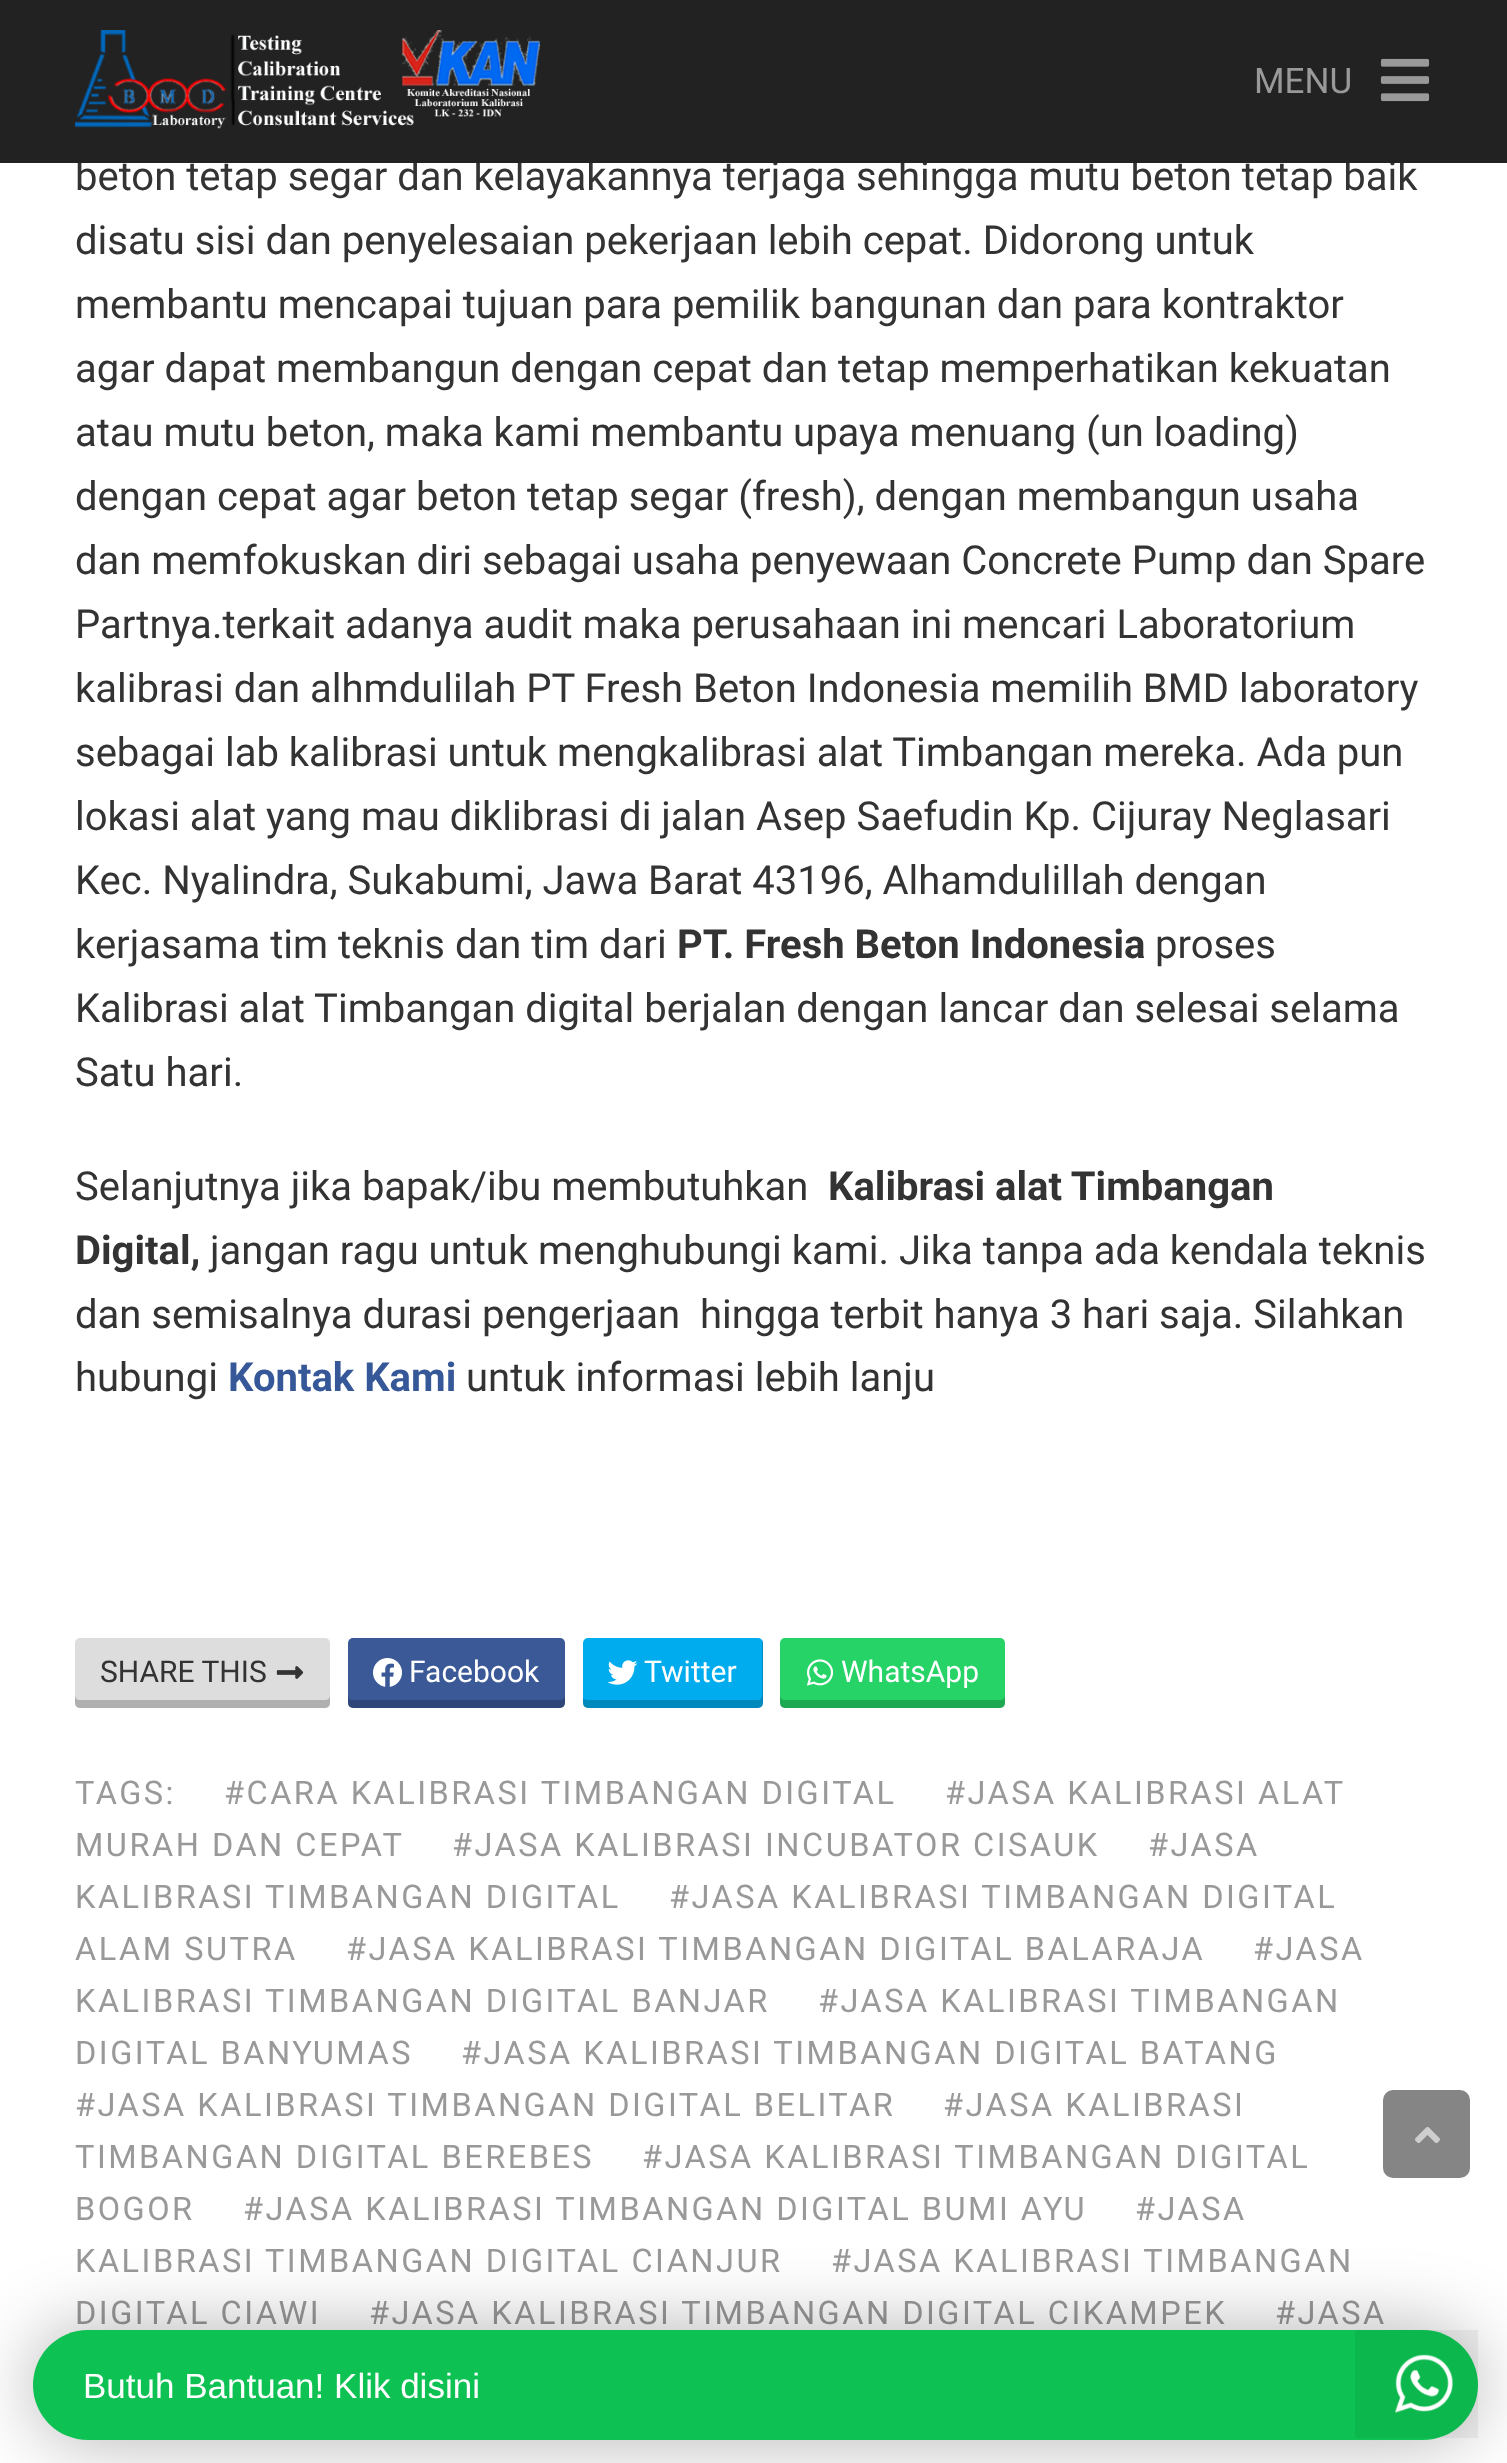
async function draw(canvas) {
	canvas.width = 1507;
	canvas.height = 2463;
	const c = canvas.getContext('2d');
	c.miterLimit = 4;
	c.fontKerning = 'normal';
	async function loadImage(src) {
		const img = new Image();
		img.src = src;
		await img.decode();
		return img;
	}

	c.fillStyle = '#fff';
	c.fillRect(0, 0, 1507, 2463);
	c.font = '40px Roboto';
	c.fillStyle = '#333';
	c.fillText('beton tetap segar dan kelayakannya terjaga sehingga mutu beton tetap baik', 75, 190);
	c.fillStyle = '#222';
	c.fillRect(0, 0, 1507, 163);
	c.drawImage(await loadImage('img1.png'), 75, 30, 465, 100);
	c.font = '35px Roboto';
	c.fillStyle = '#999';
	c.fillText('MENU', 1254, 93);
	c.drawImage(await loadImage('img2.png'), 1380, 58, 50, 44);
	c.font = '40px Roboto';
	c.fillStyle = '#333';
	for (const [text, x, y] of [
		['disatu sisi dan penyelesaian pekerjaan lebih cepat. Didorong untuk', 75, 254],
		['membantu mencapai tujuan para pemilik bangunan dan para kontraktor', 75, 318],
		['agar dapat membangun dengan cepat dan tetap memperhatikan kekuatan', 75, 382],
		['atau mutu beton, maka kami membantu upaya menuang (un loading)', 75, 446],
		['dengan cepat agar beton tetap segar (fresh), dengan membangun usaha', 75, 510],
		['dan memfokuskan diri sebagai usaha penyewaan Concrete Pump dan Spare', 75, 574],
		['Partnya.terkait adanya audit maka perusahaan ini mencari Laboratorium', 75, 638],
		['kalibrasi dan alhmdulilah PT Fresh Beton Indonesia memilih BMD laboratory', 75, 702],
		['sebagai lab kalibrasi untuk mengkalibrasi alat Timbangan mereka. Ada pun', 75, 766],
		['lokasi alat yang mau diklibrasi di jalan Asep Saefudin Kp. Cijuray Neglasari', 75, 830],
		['Kec. Nyalindra, Sukabumi, Jawa Barat 43196, Alhamdulillah dengan', 75, 894],
		['kerjasama tim teknis dan tim dari', 75, 958],
	]) {
		c.fillText(text, x, y);
	}
	c.font = 'bold 40px Roboto';
	c.fillText('PT. Fresh Beton Indonesia', 677, 958);
	c.font = '40px Roboto';
	for (const [text, x, y] of [
		['proses', 1155, 958],
		['Kalibrasi alat Timbangan digital berjalan dengan lancar dan selesai selama', 75, 1022],
		['Satu hari.', 75, 1086],
		['Selanjutnya jika bapak/ibu membutuhkan', 75, 1200],
	]) {
		c.fillText(text, x, y);
	}
	c.font = 'bold 40px Roboto';
	c.fillText('Kalibrasi alat Timbangan', 828, 1200);
	c.fillText('Digital,', 75, 1264);
	c.font = '40px Roboto';
	for (const [text, x, y] of [
		['jangan ragu untuk menghubungi kami. Jika tanpa ada kendala teknis', 210, 1264],
		['dan semisalnya durasi pengerjaan  hingga terbit hanya 3 hari saja. Silahkan', 75, 1328],
		['hubungi', 75, 1391],
	]) {
		c.fillText(text, x, y);
	}
	c.font = 'bold 40px Roboto';
	c.fillStyle = '#365899';
	c.fillText('Kontak Kami', 228, 1391);
	c.font = '40px Roboto';
	c.fillStyle = '#333';
	c.fillText('untuk informasi lebih lanju', 466, 1391);
	c.fillStyle = '#ddd';
	c.beginPath();
	c.roundRect(75, 1638, 255, 70, 5);
	c.fill();
	c.fillStyle = '#00000033';
	c.beginPath();
	c.moveTo(75, 1695);
	c.lineTo(75, 1703);
	c.bezierCurveTo(75, 1706, 77, 1708, 80, 1708);
	c.lineTo(325, 1708);
	c.bezierCurveTo(328, 1708, 330, 1706, 330, 1703);
	c.lineTo(330, 1695);
	c.bezierCurveTo(330, 1698, 328, 1700, 325, 1700);
	c.lineTo(80, 1700);
	c.bezierCurveTo(77, 1700, 75, 1698, 75, 1695);
	c.closePath();
	c.fill();
	c.font = '30px Roboto';
	c.fillStyle = '#333';
	c.fillText('SHARE THIS', 100, 1682);
	c.drawImage(await loadImage('img3.png'), 276, 1666, 28, 13);
	c.fillStyle = '#3b5997';
	c.beginPath();
	c.roundRect(348, 1638, 217, 70, 5);
	c.fill();
	c.fillStyle = '#00000033';
	c.beginPath();
	c.moveTo(348, 1695);
	c.lineTo(348, 1703);
	c.bezierCurveTo(348, 1706, 350, 1708, 353, 1708);
	c.lineTo(560, 1708);
	c.bezierCurveTo(563, 1708, 565, 1706, 565, 1703);
	c.lineTo(565, 1695);
	c.bezierCurveTo(565, 1698, 563, 1700, 560, 1700);
	c.lineTo(352, 1700);
	c.bezierCurveTo(350, 1700, 348, 1698, 348, 1695);
	c.closePath();
	c.fill();
	c.drawImage(await loadImage('img4.png'), 373, 1658, 29, 29);
	c.fillStyle = '#fff';
	c.fillText('Facebook', 409, 1682);
	c.fillStyle = '#00aced';
	c.beginPath();
	c.roundRect(583, 1638, 180, 70, 5);
	c.fill();
	c.fillStyle = '#00000033';
	c.beginPath();
	c.moveTo(583, 1698);
	c.lineTo(583, 1703);
	c.bezierCurveTo(583, 1706, 585, 1708, 588, 1708);
	c.lineTo(758, 1708);
	c.bezierCurveTo(761, 1708, 763, 1706, 763, 1703);
	c.lineTo(763, 1643);
	c.bezierCurveTo(763, 1642, 763, 1641, 762, 1640);
	c.lineTo(762, 1695);
	c.bezierCurveTo(762, 1698, 760, 1700, 758, 1700);
	c.lineTo(588, 1700);
	c.bezierCurveTo(586, 1700, 584, 1699, 583, 1698);
	c.closePath();
	c.fill();
	c.drawImage(await loadImage('img5.png'), 608, 1660, 30, 25);
	c.fillStyle = '#fff';
	c.fillText('Twitter', 644, 1682);
	c.fillStyle = '#25d366';
	c.beginPath();
	c.roundRect(780, 1638, 225, 70, 5);
	c.fill();
	c.fillStyle = '#00000033';
	c.beginPath();
	c.moveTo(780, 1695);
	c.lineTo(780, 1703);
	c.bezierCurveTo(780, 1706, 782, 1708, 785, 1708);
	c.lineTo(1000, 1708);
	c.bezierCurveTo(1003, 1708, 1005, 1706, 1005, 1703);
	c.lineTo(1005, 1695);
	c.bezierCurveTo(1005, 1698, 1003, 1700, 1000, 1700);
	c.lineTo(785, 1700);
	c.bezierCurveTo(782, 1700, 780, 1698, 780, 1695);
	c.closePath();
	c.fill();
	c.drawImage(await loadImage('img6.png'), 806, 1659, 28, 27);
	c.fillStyle = '#fff';
	c.fillText('WhatsApp', 841, 1682);
	c.letterSpacing = '2.5px';
	c.font = '32.5px Roboto';
	c.fillStyle = '#999';
	for (const [text, x, y] of [
		['TAGS:', 75, 1804],
		['#CARA KALIBRASI TIMBANGAN DIGITAL', 224, 1804],
		['#JASA KALIBRASI ALAT', 945, 1804],
		['MURAH DAN CEPAT', 75, 1856],
		['#JASA KALIBRASI INCUBATOR CISAUK', 452, 1856],
		['#JASA', 1148, 1856],
		['KALIBRASI TIMBANGAN DIGITAL', 75, 1908],
		['#JASA KALIBRASI TIMBANGAN DIGITAL', 669, 1908],
		['ALAM SUTRA', 75, 1960],
		['#JASA KALIBRASI TIMBANGAN DIGITAL BALARAJA', 346, 1960],
		['#JASA', 1253, 1960],
		['KALIBRASI TIMBANGAN DIGITAL BANJAR', 75, 2012],
		['#JASA KALIBRASI TIMBANGAN', 818, 2012],
		['DIGITAL BANYUMAS', 75, 2064],
		['#JASA KALIBRASI TIMBANGAN DIGITAL BATANG', 461, 2064],
		['#JASA KALIBRASI TIMBANGAN DIGITAL BELITAR', 75, 2116],
		['#JASA KALIBRASI', 943, 2116],
		['TIMBANGAN DIGITAL BEREBES', 75, 2168],
		['#JASA KALIBRASI TIMBANGAN DIGITAL', 642, 2168],
		['BOGOR', 75, 2220],
		['#JASA KALIBRASI TIMBANGAN DIGITAL BUMI AYU', 243, 2220],
		['#JASA', 1135, 2220],
		['KALIBRASI TIMBANGAN DIGITAL CIANJUR', 75, 2272],
		['#JASA KALIBRASI TIMBANGAN', 831, 2272],
		['DIGITAL CIAWI', 75, 2324],
		['#JASA KALIBRASI TIMBANGAN DIGITAL CIKAMPEK', 369, 2324],
		['#JASA', 1275, 2324],
	]) {
		c.fillText(text, x, y);
	}
	c.fillStyle = '#858585';
	c.beginPath();
	c.roundRect(1383, 2090, 87, 88, 10);
	c.fill();
	c.drawImage(await loadImage('img7.png'), 1415, 2127, 25, 16);
	c.fillStyle = '#0000004d';
	c.filter = 'blur(37.5px)';
	c.beginPath();
	c.roundRect(33, 2330, 1445, 110, 55);
	c.fill();
	c.filter = 'none';
	c.fillStyle = '#0dc152';
	c.beginPath();
	c.roundRect(33, 2330, 1445, 110, 55);
	c.fill();
	c.letterSpacing = '0px';
	c.font = '35px Liberation Sans';
	c.fillStyle = '#fff';
	c.fillText('Butuh Bantuan! Klik disini', 83, 2398);
	c.fillStyle = '#0000000d';
	c.fillRect(1355, 2330, 123, 108);
	c.drawImage(await loadImage('img8.png'), 1395, 2354, 58, 59);
}

draw(document.querySelector('canvas'));
